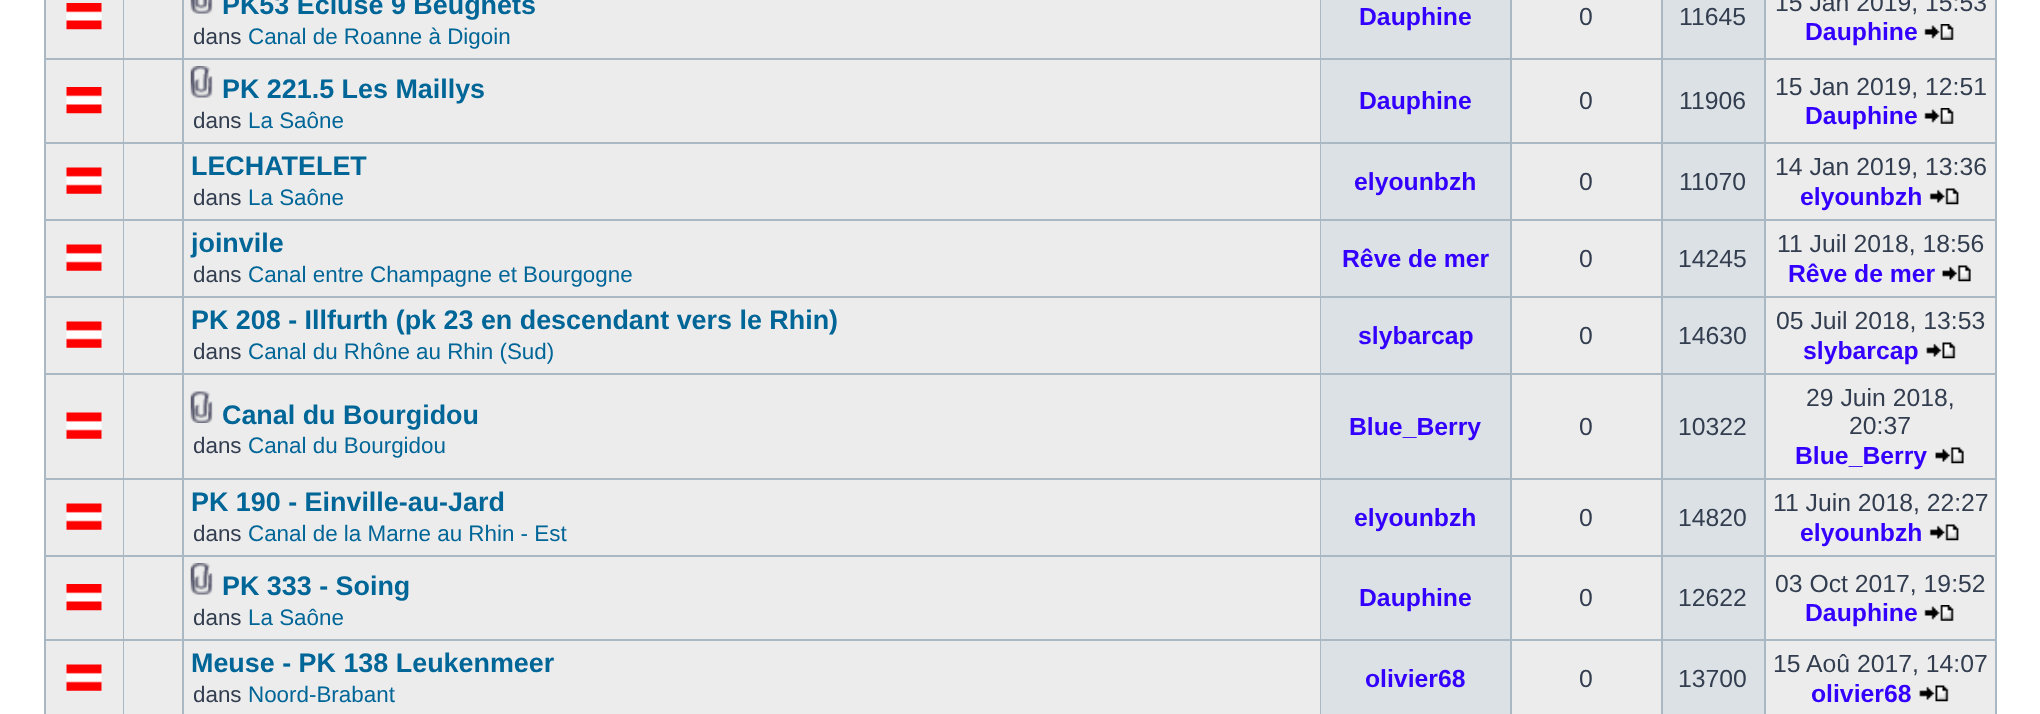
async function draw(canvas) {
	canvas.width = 2040;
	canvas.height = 714;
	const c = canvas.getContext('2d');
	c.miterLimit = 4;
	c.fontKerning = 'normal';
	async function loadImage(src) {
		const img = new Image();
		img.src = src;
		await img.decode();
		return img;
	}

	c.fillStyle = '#fff';
	c.fillRect(0, 0, 2040, 714);
	c.fillStyle = '#a9b8c2';
	c.fillRect(44, 0, 1953, 714);
	c.fillStyle = '#ececec';
	c.fillRect(46, 0, 77, 58);
	c.drawImage(await loadImage('img1.png'), 66, 3, 36, 27);
	c.fillRect(124, 0, 58, 58);
	c.fillRect(184, 0, 1136, 58);
	c.drawImage(await loadImage('img2.png'), 190, 0, 23, 14);
	c.font = 'bold 26.9px Liberation Sans';
	c.fillStyle = '#006597';
	c.fillText('PK53 Ecluse 9 Beugnets', 222, 14);
	c.font = '22.4px Liberation Sans';
	c.fillStyle = '#323d4f';
	c.fillText('dans', 193, 44);
	c.fillStyle = '#006597';
	c.fillText('Canal de Roanne à Digoin', 248, 44);
	c.fillStyle = '#dce1e5';
	c.fillRect(1321, 0, 189, 58);
	c.font = 'bold 24.75px Liberation Sans';
	c.fillStyle = '#30f';
	c.fillText('Dauphine', 1359, 25);
	c.fillStyle = '#ececec';
	c.fillRect(1512, 0, 149, 58);
	c.font = '24.75px Liberation Sans';
	c.fillStyle = '#323d4f';
	c.fillText('0', 1579, 25);
	c.fillStyle = '#dce1e5';
	c.fillRect(1663, 0, 101, 58);
	c.fillStyle = '#323d4f';
	c.fillText('11645', 1679, 25);
	c.fillStyle = '#ececec';
	c.fillRect(1766, 0, 229, 58);
	c.fillStyle = '#323d4f';
	c.fillText('15 Jan 2019, 15:53', 1775, 11);
	c.font = 'bold 24.75px Liberation Sans';
	c.fillStyle = '#30f';
	c.fillText('Dauphine', 1805, 40);
	c.drawImage(await loadImage('img3.png'), 1924, 24, 30, 16);
	c.fillStyle = '#ececec';
	c.fillRect(46, 60, 77, 82);
	c.drawImage(await loadImage('img1.png'), 66, 87, 36, 27);
	c.fillRect(124, 60, 58, 82);
	c.fillRect(184, 60, 1136, 82);
	c.drawImage(await loadImage('img4.png'), 190, 66, 23, 32);
	c.font = 'bold 26.9px Liberation Sans';
	c.fillStyle = '#006597';
	c.fillText('PK 221.5 Les Maillys', 222, 98);
	c.font = '22.4px Liberation Sans';
	c.fillStyle = '#323d4f';
	c.fillText('dans', 193, 128);
	c.fillStyle = '#006597';
	c.fillText('La Saône', 248, 128);
	c.fillStyle = '#dce1e5';
	c.fillRect(1321, 60, 189, 82);
	c.font = 'bold 24.75px Liberation Sans';
	c.fillStyle = '#30f';
	c.fillText('Dauphine', 1359, 109);
	c.fillStyle = '#ececec';
	c.fillRect(1512, 60, 149, 82);
	c.font = '24.75px Liberation Sans';
	c.fillStyle = '#323d4f';
	c.fillText('0', 1579, 109);
	c.fillStyle = '#dce1e5';
	c.fillRect(1663, 60, 101, 82);
	c.fillStyle = '#323d4f';
	c.fillText('11906', 1679, 109);
	c.fillStyle = '#ececec';
	c.fillRect(1766, 60, 229, 82);
	c.fillStyle = '#323d4f';
	c.fillText('15 Jan 2019, 12:51', 1775, 95);
	c.font = 'bold 24.75px Liberation Sans';
	c.fillStyle = '#30f';
	c.fillText('Dauphine', 1805, 124);
	c.drawImage(await loadImage('img3.png'), 1924, 108, 30, 16);
	c.fillStyle = '#ececec';
	c.fillRect(46, 144, 77, 75);
	c.drawImage(await loadImage('img5.png'), 66, 167, 36, 27);
	c.fillRect(124, 144, 58, 75);
	c.fillRect(184, 144, 1136, 75);
	c.font = 'bold 26.9px Liberation Sans';
	c.fillStyle = '#006597';
	c.fillText('LECHATELET', 191, 175);
	c.font = '22.4px Liberation Sans';
	c.fillStyle = '#323d4f';
	c.fillText('dans', 193, 205);
	c.fillStyle = '#006597';
	c.fillText('La Saône', 248, 205);
	c.fillStyle = '#dce1e5';
	c.fillRect(1321, 144, 189, 75);
	c.font = 'bold 24.75px Liberation Sans';
	c.fillStyle = '#30f';
	c.fillText('elyounbzh', 1354, 190);
	c.fillStyle = '#ececec';
	c.fillRect(1512, 144, 149, 75);
	c.font = '24.75px Liberation Sans';
	c.fillStyle = '#323d4f';
	c.fillText('0', 1579, 190);
	c.fillStyle = '#dce1e5';
	c.fillRect(1663, 144, 101, 75);
	c.fillStyle = '#323d4f';
	c.fillText('11070', 1679, 190);
	c.fillStyle = '#ececec';
	c.fillRect(1766, 144, 229, 75);
	c.fillStyle = '#323d4f';
	c.fillText('14 Jan 2019, 13:36', 1775, 175);
	c.font = 'bold 24.75px Liberation Sans';
	c.fillStyle = '#30f';
	c.fillText('elyounbzh', 1800, 205);
	c.drawImage(await loadImage('img6.png'), 1929, 188, 30, 17);
	c.fillStyle = '#ececec';
	c.fillRect(46, 221, 77, 75);
	c.drawImage(await loadImage('img5.png'), 66, 244, 36, 27);
	c.fillRect(124, 221, 58, 75);
	c.fillRect(184, 221, 1136, 75);
	c.font = 'bold 26.9px Liberation Sans';
	c.fillStyle = '#006597';
	c.fillText('joinvile', 191, 252);
	c.font = '22.4px Liberation Sans';
	c.fillStyle = '#323d4f';
	c.fillText('dans', 193, 282);
	c.fillStyle = '#006597';
	c.fillText('Canal entre Champagne et Bourgogne', 248, 282);
	c.fillStyle = '#dce1e5';
	c.fillRect(1321, 221, 189, 75);
	c.font = 'bold 24.75px Liberation Sans';
	c.fillStyle = '#30f';
	c.fillText('Rêve de mer', 1342, 267);
	c.fillStyle = '#ececec';
	c.fillRect(1512, 221, 149, 75);
	c.font = '24.75px Liberation Sans';
	c.fillStyle = '#323d4f';
	c.fillText('0', 1579, 267);
	c.fillStyle = '#dce1e5';
	c.fillRect(1663, 221, 101, 75);
	c.fillStyle = '#323d4f';
	c.fillText('14245', 1678, 267);
	c.fillStyle = '#ececec';
	c.fillRect(1766, 221, 229, 75);
	c.fillStyle = '#323d4f';
	c.fillText('11 Juil 2018, 18:56', 1777, 252);
	c.font = 'bold 24.75px Liberation Sans';
	c.fillStyle = '#30f';
	c.fillText('Rêve de mer', 1788, 282);
	c.drawImage(await loadImage('img7.png'), 1942, 265, 29, 17);
	c.fillStyle = '#ececec';
	c.fillRect(46, 298, 77, 75);
	c.drawImage(await loadImage('img5.png'), 66, 321, 36, 27);
	c.fillRect(124, 298, 58, 75);
	c.fillRect(184, 298, 1136, 75);
	c.font = 'bold 26.9px Liberation Sans';
	c.fillStyle = '#006597';
	c.fillText('PK 208 - Illfurth (pk 23 en descendant vers le Rhin)', 191, 329);
	c.font = '22.4px Liberation Sans';
	c.fillStyle = '#323d4f';
	c.fillText('dans', 193, 359);
	c.fillStyle = '#006597';
	c.fillText('Canal du Rhône au Rhin (Sud)', 248, 359);
	c.fillStyle = '#dce1e5';
	c.fillRect(1321, 298, 189, 75);
	c.font = 'bold 24.75px Liberation Sans';
	c.fillStyle = '#30f';
	c.fillText('slybarcap', 1358, 344);
	c.fillStyle = '#ececec';
	c.fillRect(1512, 298, 149, 75);
	c.font = '24.75px Liberation Sans';
	c.fillStyle = '#323d4f';
	c.fillText('0', 1579, 344);
	c.fillStyle = '#dce1e5';
	c.fillRect(1663, 298, 101, 75);
	c.fillStyle = '#323d4f';
	c.fillText('14630', 1678, 344);
	c.fillStyle = '#ececec';
	c.fillRect(1766, 298, 229, 75);
	c.fillStyle = '#323d4f';
	c.fillText('05 Juil 2018, 13:53', 1776, 329);
	c.font = 'bold 24.75px Liberation Sans';
	c.fillStyle = '#30f';
	c.fillText('slybarcap', 1803, 359);
	c.drawImage(await loadImage('img8.png'), 1926, 342, 30, 17);
	c.fillStyle = '#ececec';
	c.fillRect(46, 375, 77, 103);
	c.drawImage(await loadImage('img5.png'), 66, 412, 36, 27);
	c.fillRect(124, 375, 58, 103);
	c.fillRect(184, 375, 1136, 103);
	c.drawImage(await loadImage('img9.png'), 190, 391, 23, 32);
	c.font = 'bold 26.9px Liberation Sans';
	c.fillStyle = '#006597';
	c.fillText('Canal du Bourgidou', 222, 424);
	c.font = '22.4px Liberation Sans';
	c.fillStyle = '#323d4f';
	c.fillText('dans', 193, 453);
	c.fillStyle = '#006597';
	c.fillText('Canal du Bourgidou', 248, 453);
	c.fillStyle = '#dce1e5';
	c.fillRect(1321, 375, 189, 103);
	c.font = 'bold 24.75px Liberation Sans';
	c.fillStyle = '#30f';
	c.fillText('Blue_Berry', 1349, 435);
	c.fillStyle = '#ececec';
	c.fillRect(1512, 375, 149, 103);
	c.font = '24.75px Liberation Sans';
	c.fillStyle = '#323d4f';
	c.fillText('0', 1579, 435);
	c.fillStyle = '#dce1e5';
	c.fillRect(1663, 375, 101, 103);
	c.fillStyle = '#323d4f';
	c.fillText('10322', 1678, 435);
	c.fillStyle = '#ececec';
	c.fillRect(1766, 375, 229, 103);
	c.fillStyle = '#323d4f';
	c.fillText('29 Juin 2018,', 1806, 406);
	c.fillText('20:37', 1849, 434);
	c.font = 'bold 24.75px Liberation Sans';
	c.fillStyle = '#30f';
	c.fillText('Blue_Berry', 1795, 464);
	c.drawImage(await loadImage('img7.png'), 1935, 447, 29, 17);
	c.fillStyle = '#ececec';
	c.fillRect(46, 480, 77, 75);
	c.drawImage(await loadImage('img5.png'), 66, 503, 36, 27);
	c.fillRect(124, 480, 58, 75);
	c.fillRect(184, 480, 1136, 75);
	c.font = 'bold 26.9px Liberation Sans';
	c.fillStyle = '#006597';
	c.fillText('PK 190 - Einville-au-Jard', 191, 511);
	c.font = '22.4px Liberation Sans';
	c.fillStyle = '#323d4f';
	c.fillText('dans', 193, 541);
	c.fillStyle = '#006597';
	c.fillText('Canal de la Marne au Rhin - Est', 248, 541);
	c.fillStyle = '#dce1e5';
	c.fillRect(1321, 480, 189, 75);
	c.font = 'bold 24.75px Liberation Sans';
	c.fillStyle = '#30f';
	c.fillText('elyounbzh', 1354, 526);
	c.fillStyle = '#ececec';
	c.fillRect(1512, 480, 149, 75);
	c.font = '24.75px Liberation Sans';
	c.fillStyle = '#323d4f';
	c.fillText('0', 1579, 526);
	c.fillStyle = '#dce1e5';
	c.fillRect(1663, 480, 101, 75);
	c.fillStyle = '#323d4f';
	c.fillText('14820', 1678, 526);
	c.fillStyle = '#ececec';
	c.fillRect(1766, 480, 229, 75);
	c.fillStyle = '#323d4f';
	c.fillText('11 Juin 2018, 22:27', 1773, 511);
	c.font = 'bold 24.75px Liberation Sans';
	c.fillStyle = '#30f';
	c.fillText('elyounbzh', 1800, 541);
	c.drawImage(await loadImage('img6.png'), 1929, 524, 30, 17);
	c.fillStyle = '#ececec';
	c.fillRect(46, 557, 77, 82);
	c.drawImage(await loadImage('img1.png'), 66, 584, 36, 27);
	c.fillRect(124, 557, 58, 82);
	c.fillRect(184, 557, 1136, 82);
	c.drawImage(await loadImage('img4.png'), 190, 563, 23, 32);
	c.font = 'bold 26.9px Liberation Sans';
	c.fillStyle = '#006597';
	c.fillText('PK 333 - Soing', 222, 595);
	c.font = '22.4px Liberation Sans';
	c.fillStyle = '#323d4f';
	c.fillText('dans', 193, 625);
	c.fillStyle = '#006597';
	c.fillText('La Saône', 248, 625);
	c.fillStyle = '#dce1e5';
	c.fillRect(1321, 557, 189, 82);
	c.font = 'bold 24.75px Liberation Sans';
	c.fillStyle = '#30f';
	c.fillText('Dauphine', 1359, 606);
	c.fillStyle = '#ececec';
	c.fillRect(1512, 557, 149, 82);
	c.font = '24.75px Liberation Sans';
	c.fillStyle = '#323d4f';
	c.fillText('0', 1579, 606);
	c.fillStyle = '#dce1e5';
	c.fillRect(1663, 557, 101, 82);
	c.fillStyle = '#323d4f';
	c.fillText('12622', 1678, 606);
	c.fillStyle = '#ececec';
	c.fillRect(1766, 557, 229, 82);
	c.fillStyle = '#323d4f';
	c.fillText('03 Oct 2017, 19:52', 1775, 592);
	c.font = 'bold 24.75px Liberation Sans';
	c.fillStyle = '#30f';
	c.fillText('Dauphine', 1805, 621);
	c.drawImage(await loadImage('img3.png'), 1924, 605, 30, 16);
	c.fillStyle = '#ececec';
	c.fillRect(46, 641, 77, 73);
	c.drawImage(await loadImage('img5.png'), 66, 664, 36, 27);
	c.fillRect(124, 641, 58, 73);
	c.fillRect(184, 641, 1136, 73);
	c.font = 'bold 26.9px Liberation Sans';
	c.fillStyle = '#006597';
	c.fillText('Meuse - PK 138 Leukenmeer', 191, 672);
	c.font = '22.4px Liberation Sans';
	c.fillStyle = '#323d4f';
	c.fillText('dans', 193, 702);
	c.fillStyle = '#006597';
	c.fillText('Noord-Brabant', 248, 702);
	c.fillStyle = '#dce1e5';
	c.fillRect(1321, 641, 189, 73);
	c.font = 'bold 24.75px Liberation Sans';
	c.fillStyle = '#30f';
	c.fillText('olivier68', 1365, 687);
	c.fillStyle = '#ececec';
	c.fillRect(1512, 641, 149, 73);
	c.font = '24.75px Liberation Sans';
	c.fillStyle = '#323d4f';
	c.fillText('0', 1579, 687);
	c.fillStyle = '#dce1e5';
	c.fillRect(1663, 641, 101, 73);
	c.fillStyle = '#323d4f';
	c.fillText('13700', 1678, 687);
	c.fillStyle = '#ececec';
	c.fillRect(1766, 641, 229, 73);
	c.fillStyle = '#323d4f';
	c.fillText('15 Aoû 2017, 14:07', 1773, 672);
	c.font = 'bold 24.75px Liberation Sans';
	c.fillStyle = '#30f';
	c.fillText('olivier68', 1811, 702);
	c.drawImage(await loadImage('img8.png'), 1919, 685, 30, 17);
}

draw(document.querySelector('canvas'));
